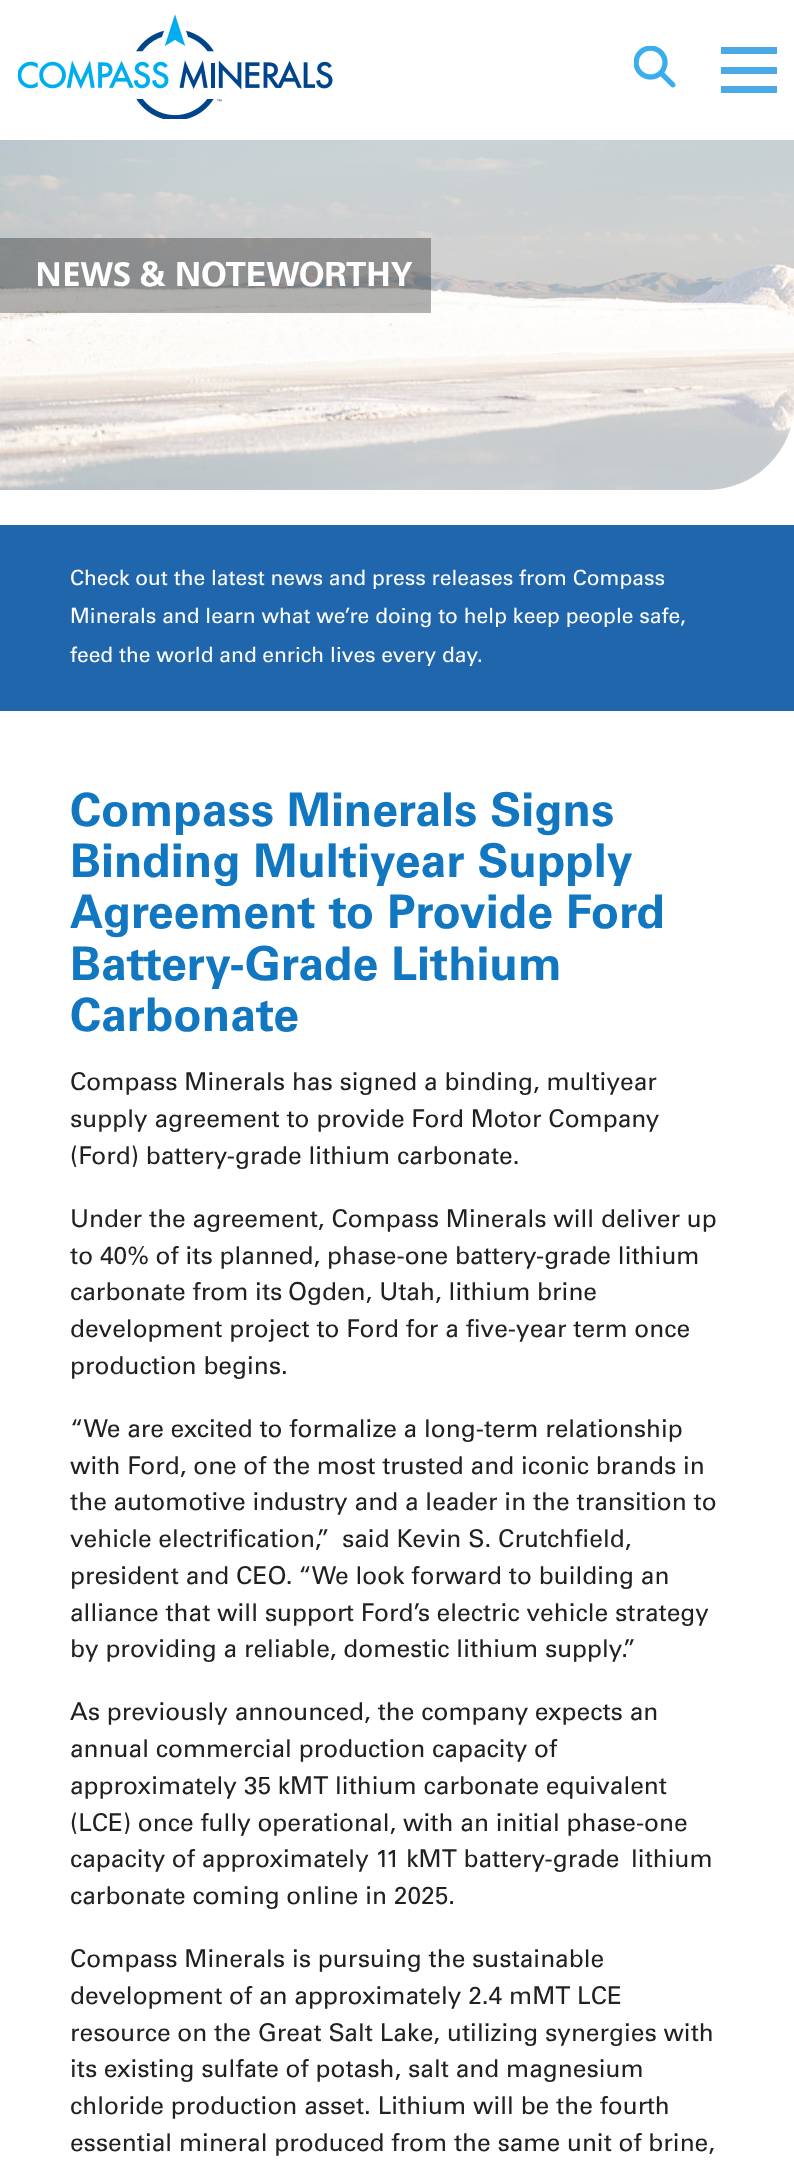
async function draw(canvas) {
	canvas.width = 794;
	canvas.height = 2164;
	const c = canvas.getContext('2d');
	c.miterLimit = 4;
	c.fontKerning = 'normal';
	async function loadImage(src) {
		const img = new Image();
		img.src = src;
		await img.decode();
		return img;
	}

	c.fillStyle = '#fff';
	c.fillRect(0, 0, 794, 2164);
	c.drawImage(await loadImage('img1.png'), 18, 14, 315, 105);
	c.drawImage(await loadImage('img2.png'), 634, 46, 42, 42);
	for (const [x, y, w, h, color] of [
		[721, 67, 56, 7, '#49aae7'],
		[721, 47, 56, 7, '#49aae7'],
		[721, 86, 56, 7, '#49aae7'],
	]) {
		c.fillStyle = color;
		c.fillRect(x, y, w, h);
	}
	c.drawImage(await loadImage('img3.png'), 0, 140, 794, 350);
	c.fillStyle = '#0000004d';
	c.fillRect(0, 238, 431, 75);
	c.font = 'bold 33.25px Open Sans';
	c.fillStyle = '#fff';
	c.fillText('NEWS', 35, 286);
	c.font = 'bold 33.25px "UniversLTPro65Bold"';
	c.fillText('& NOTEWORTHY', 140, 286);
	c.fillStyle = '#2066ad';
	c.fillRect(0, 525, 794, 186);
	c.font = '21px "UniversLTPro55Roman"';
	c.fillStyle = '#fff';
	for (const [text, x, y] of [
		['Check out the latest news and press releases from Compass', 70, 585],
		['Minerals and learn what we’re doing to help keep people safe,', 70, 623],
		['feed the world and enrich lives every day.', 70, 662],
	]) {
		c.fillText(text, x, y);
	}
	c.font = 'bold 46.5px "UniversLTPro65Bold"';
	c.fillStyle = '#1177c1';
	for (const [text, x, y] of [
		['Compass Minerals Signs', 70, 826],
		['Binding Multiyear Supply', 70, 877],
		['Agreement to Provide Ford', 70, 928],
		['Battery-Grade Lithium', 70, 980],
		['Carbonate', 70, 1031],
	]) {
		c.fillText(text, x, y);
	}
	c.font = '24.5px "UniversLTPro55Roman"';
	c.fillStyle = '#212121';
	for (const [text, x, y] of [
		['Compass Minerals has signed a binding, multiyear', 70, 1090],
		['supply agreement to provide Ford Motor Company', 70, 1127],
		['(Ford) battery-grade lithium carbonate.', 70, 1164],
		['Under the agreement, Compass Minerals will deliver up', 70, 1227],
		['to 40% of its planned, phase-one battery-grade lithium', 70, 1264],
		['carbonate from its Ogden, Utah, lithium brine', 70, 1300],
		['development project to Ford for a five-year term once', 70, 1337],
		['production begins.', 70, 1374],
		['“We are excited to formalize a long-term relationship', 70, 1437],
		['with Ford, one of the most trusted and iconic brands in', 70, 1474],
		['the automotive industry and a leader in the transition to', 70, 1510],
		['vehicle electrification,”', 70, 1547],
		['said Kevin S. Crutchfield,', 342, 1547],
		['president and CEO. “We look forward to building an', 70, 1584],
		['alliance that will support Ford’s electric vehicle strategy', 70, 1621],
		['by providing a reliable, domestic lithium supply.”', 70, 1657],
		['As previously announced, the company expects an', 70, 1720],
		['annual commercial production capacity of', 70, 1757],
		['approximately 35 kMT lithium carbonate equivalent', 70, 1794],
		['(LCE) once fully operational, with an initial phase-one', 70, 1831],
		['capacity of approximately 11 kMT battery-grade', 70, 1867],
		['lithium', 631, 1867],
		['carbonate coming online in 2025.', 70, 1904],
		['Compass Minerals is pursuing the sustainable', 70, 1967],
		['development of an approximately 2.4 mMT LCE', 70, 2004],
		['resource on the Great Salt Lake, utilizing synergies with', 70, 2041],
		['its existing sulfate of potash, salt and magnesium', 70, 2077],
		['chloride production asset. Lithium will be the fourth', 70, 2114],
		['essential mineral produced from the same unit of brine,', 70, 2151],
	]) {
		c.fillText(text, x, y);
	}
}

draw(document.querySelector('canvas'));
